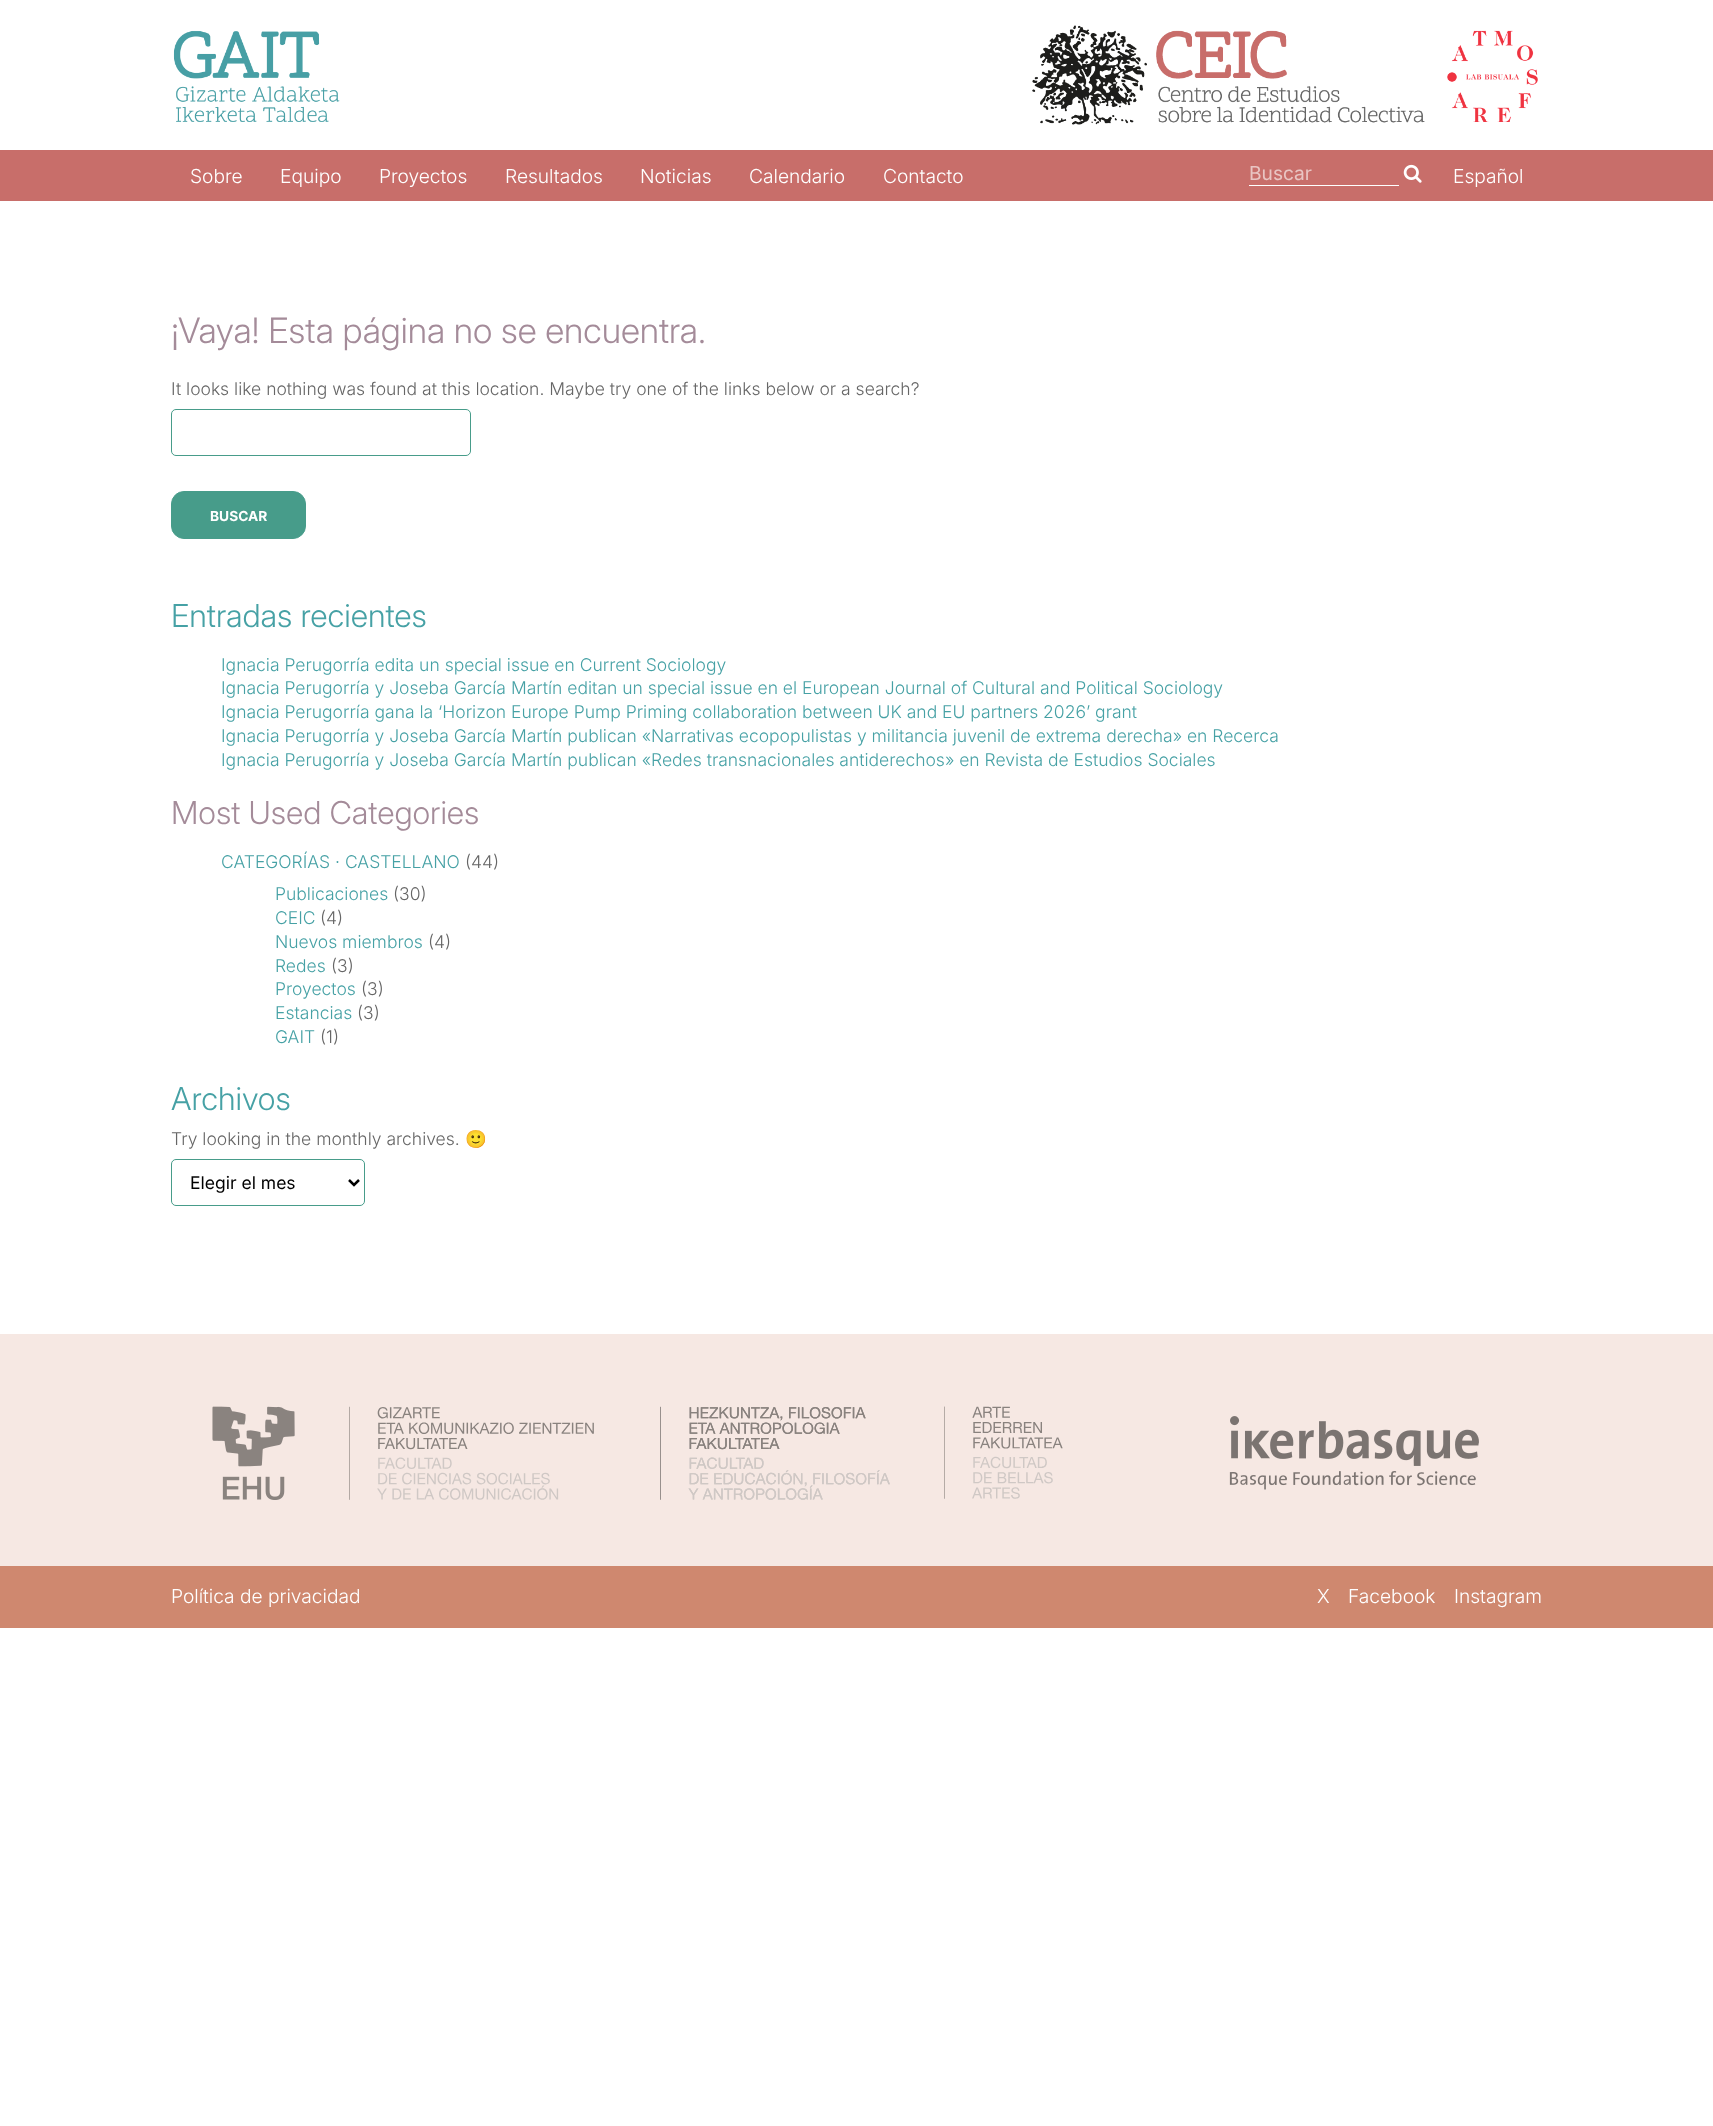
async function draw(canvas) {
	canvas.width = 1713;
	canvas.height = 2126;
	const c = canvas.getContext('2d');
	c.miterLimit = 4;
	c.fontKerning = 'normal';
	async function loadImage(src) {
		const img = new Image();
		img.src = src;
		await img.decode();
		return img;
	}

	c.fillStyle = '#fff';
	c.fillRect(0, 0, 1713, 2126);
	c.drawImage(await loadImage('img1.png'), 173, 30, 167, 92);
	c.drawImage(await loadImage('img2.png'), 1032, 25, 393, 100);
	c.drawImage(await loadImage('img3.png'), 1447, 30, 91, 92);
	c.fillStyle = '#c86e6a';
	c.fillRect(0, 150, 1713, 51);
	c.font = '300 19.25px Inter';
	c.fillStyle = '#fff';
	for (const [text, x, y] of [
		['Sobre', 190, 183],
		['Equipo', 280, 183],
		['Proyectos', 379, 183],
		['Resultados', 505, 183],
		['Noticias', 640, 183],
		['Calendario', 749, 183],
		['Contacto', 883, 183],
	]) {
		c.fillText(text, x, y);
	}
	c.fillRect(1249, 185, 150, 1);
	c.font = '19.25px Inter';
	c.fillStyle = '#e9c5c3';
	c.fillText('Buscar', 1249, 180);
	c.drawImage(await loadImage('img4.png'), 1403, 164, 19, 19);
	c.font = '300 19.25px Inter';
	c.fillStyle = '#fff';
	c.fillText('Español', 1453, 183);
	c.font = '300 35px "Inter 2"';
	c.fillStyle = '#a48b99';
	c.fillText('¡Vaya! Esta página no se encuentra.', 171, 343);
	c.font = '300 17.5px "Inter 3"';
	c.fillStyle = '#666';
	c.fillText('It looks like nothing was found at this location. Maybe try one of the links below or a search?', 171, 395);
	c.beginPath();
	c.roundRect(171.5, 409.5, 299, 46, 4.5);
	c.strokeStyle = '#479c8a';
	c.stroke();
	c.fillStyle = '#479c8a';
	c.beginPath();
	c.roundRect(171.5, 491.5, 134, 47, 12.5);
	c.fill();
	c.stroke();
	c.font = 'bold 13.75px Inter';
	c.fillStyle = '#fff';
	c.fillText('BUSCAR', 210, 521);
	c.font = '300 31.5px "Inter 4"';
	c.fillStyle = '#46a1a5';
	c.fillText('Entradas recientes', 171, 627);
	c.font = '300 17.5px "Inter 3"';
	for (const [text, x, y] of [
		['Ignacia Perugorría edita un special issue en Current Sociology', 221, 671],
		['Ignacia Perugorría y Joseba García Martín editan un special issue en el European Journal of Cultural and Political Sociology', 221, 694],
		['Ignacia Perugorría gana la ‘Horizon Europe Pump Priming collaboration between UK and EU partners 2026’ grant', 221, 718],
		['Ignacia Perugorría y Joseba García Martín publican «Narrativas ecopopulistas y militancia juvenil de extrema derecha» en Recerca', 221, 742],
		['Ignacia Perugorría y Joseba García Martín publican «Redes transnacionales antiderechos» en Revista de Estudios Sociales', 221, 766],
	]) {
		c.fillText(text, x, y);
	}
	c.font = '300 31.5px "Inter 4"';
	c.fillStyle = '#a48b99';
	c.fillText('Most Used Categories', 171, 824);
	c.font = '300 17.5px "Inter 3"';
	c.fillStyle = '#46a1a5';
	c.fillText('CATEGORÍAS · CASTELLANO', 221, 868);
	c.fillStyle = '#666';
	c.fillText('(44)', 465, 868);
	c.fillStyle = '#46a1a5';
	c.fillText('Publicaciones', 275, 900);
	c.fillStyle = '#666';
	c.fillText('(30)', 393, 900);
	c.fillStyle = '#46a1a5';
	c.fillText('CEIC', 275, 924);
	c.fillStyle = '#666';
	c.fillText('(4)', 320, 924);
	c.fillStyle = '#46a1a5';
	c.fillText('Nuevos miembros', 275, 948);
	c.fillStyle = '#666';
	c.fillText('(4)', 428, 948);
	c.fillStyle = '#46a1a5';
	c.fillText('Redes', 275, 972);
	c.fillStyle = '#666';
	c.fillText('(3)', 331, 972);
	c.fillStyle = '#46a1a5';
	c.fillText('Proyectos', 275, 995);
	c.fillStyle = '#666';
	c.fillText('(3)', 361, 995);
	c.fillStyle = '#46a1a5';
	c.fillText('Estancias', 275, 1019);
	c.fillStyle = '#666';
	c.fillText('(3)', 357, 1019);
	c.fillStyle = '#46a1a5';
	c.fillText('GAIT', 275, 1043);
	c.fillStyle = '#666';
	c.fillText('(1)', 320, 1043);
	c.font = '300 31.5px "Inter 4"';
	c.fillStyle = '#46a1a5';
	c.fillText('Archivos', 171, 1110);
	c.font = '300 17.5px "Inter 3"';
	c.fillStyle = '#666';
	c.fillText('Try looking in the monthly archives.', 171, 1145);
	c.font = '17.5px Noto Color Emoji';
	c.fillText('🙂', 465, 1145);
	c.beginPath();
	c.roundRect(171.5, 1159.5, 193, 46, 4.5);
	c.stroke();
	c.beginPath();
	c.moveTo(349, 1180);
	c.lineTo(354, 1185);
	c.lineTo(359, 1180);
	c.strokeStyle = '#000';
	c.lineWidth = 2.5;
	c.stroke();
	c.font = '17.5px "Inter 2"';
	c.fillStyle = '#000';
	c.fillText('Elegir el mes', 190, 1189);
	c.fillStyle = '#f6e8e3';
	c.fillRect(0, 1334, 1713, 232);
	c.drawImage(await loadImage('img5.png'), 212, 1406, 83, 94);
	c.drawImage(await loadImage('img6.png'), 349, 1406, 245, 94);
	c.drawImage(await loadImage('img7.png'), 660, 1406, 230, 94);
	c.drawImage(await loadImage('img8.png'), 944, 1406, 119, 93);
	c.drawImage(await loadImage('img9.png'), 1229, 1416, 250, 74);
	c.fillStyle = '#cf886f';
	c.fillRect(0, 1566, 1713, 62);
	c.font = '300 19.25px Inter';
	c.fillStyle = '#fff';
	for (const [text, x, y] of [
		['Política de privacidad', 171, 1603],
		['X', 1317, 1603],
		['Facebook', 1348, 1603],
		['Instagram', 1454, 1603],
	]) {
		c.fillText(text, x, y);
	}
}

draw(document.querySelector('canvas'));
